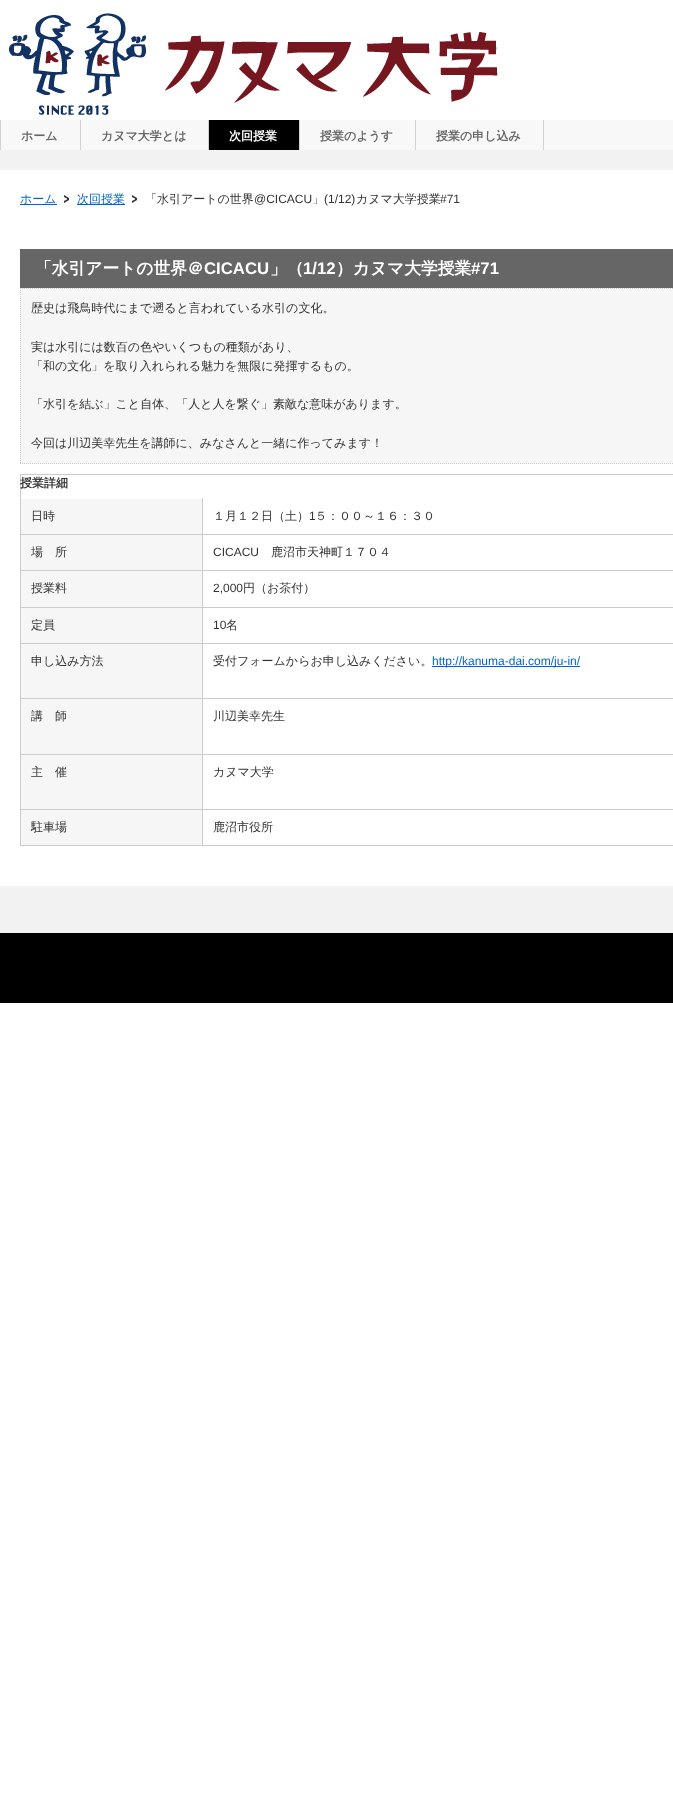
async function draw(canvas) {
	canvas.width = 673;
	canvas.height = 1816;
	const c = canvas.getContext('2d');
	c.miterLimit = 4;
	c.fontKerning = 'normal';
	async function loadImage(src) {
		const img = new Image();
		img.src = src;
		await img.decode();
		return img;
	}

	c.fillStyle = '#fff';
	c.fillRect(0, 0, 673, 1816);
	c.fillStyle = '#f2f2f2';
	c.fillRect(0, 150, 673, 783);
	c.drawImage(await loadImage('img1.png'), 9, 13, 489, 102);
	for (const [x, y, w, h, color] of [
		[1, 120, 672, 30, '#f8f8f8'],
		[0, 120, 1, 30, '#d2d2d2'],
		[80, 120, 1, 30, '#d2d2d2'],
	]) {
		c.fillStyle = color;
		c.fillRect(x, y, w, h);
	}
	c.font = 'bold 12px WenQuanYi Zen Hei';
	c.fillStyle = '#666';
	c.fillText('ホーム', 21, 140);
	c.fillStyle = '#d2d2d2';
	c.fillRect(208, 120, 1, 30);
	c.fillStyle = '#666';
	c.fillText('カヌマ大学とは', 101, 140);
	c.fillStyle = '#d2d2d2';
	c.fillRect(299, 120, 1, 30);
	c.fillStyle = '#000';
	c.fillRect(209, 120, 90, 30);
	c.fillStyle = '#fff';
	c.fillText('次回授業', 229, 140);
	c.fillStyle = '#d2d2d2';
	c.fillRect(415, 120, 1, 30);
	c.fillStyle = '#666';
	c.fillText('授業のようす', 320, 140);
	c.fillStyle = '#d2d2d2';
	c.fillRect(543, 120, 1, 30);
	c.fillStyle = '#666';
	c.fillText('授業の申し込み', 436, 140);
	c.fillStyle = '#fff';
	c.fillRect(0, 170, 673, 716);
	c.fillStyle = '#06c';
	c.fillRect(20, 204, 37, 1);
	c.font = '500 12px WenQuanYi Zen Hei';
	c.fillText('ホーム', 20, 203);
	c.drawImage(await loadImage('img2.png'), 64, 195, 5, 8);
	c.fillRect(77, 204, 48, 1);
	c.fillText('次回授業', 77, 203);
	c.drawImage(await loadImage('img2.png'), 132, 195, 5, 8);
	c.fillStyle = '#333';
	c.fillText('「水引アートの世界', 145, 203);
	c.font = '12px Liberation Sans';
	c.fillText('@CICACU', 254, 203);
	c.font = '500 12px WenQuanYi Zen Hei';
	c.fillText('」', 312, 203);
	c.font = '12px Liberation Sans';
	c.fillText('(1/12)', 324, 203);
	c.font = '500 12px WenQuanYi Zen Hei';
	c.fillText('カヌマ大学授業', 356, 203);
	c.font = '12px Liberation Sans';
	c.fillText('#71', 440, 203);
	c.fillStyle = '#666';
	c.fillRect(20, 249, 653, 39);
	c.font = 'bold 16.75px WenQuanYi Zen Hei';
	c.fillStyle = '#fff';
	c.fillText('「水引アートの世界＠', 35, 274);
	c.font = 'bold 16.75px Liberation Sans';
	c.fillText('CICACU', 204, 274);
	c.font = 'bold 16.75px WenQuanYi Zen Hei';
	c.fillText('」（', 270, 274);
	c.font = 'bold 16.75px Liberation Sans';
	c.fillText('1/12', 303, 274);
	c.font = 'bold 16.75px WenQuanYi Zen Hei';
	c.fillText('）カヌマ大学授業', 336, 274);
	c.font = 'bold 16.75px Liberation Sans';
	c.fillText('#71', 471, 274);
	c.fillStyle = '#f6f6f6';
	c.fillRect(20, 288, 653, 176);
	c.beginPath();
	c.moveTo(20, 288.5);
	c.lineTo(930, 288.5);
	c.strokeStyle = '#ccc';
	c.setLineDash([1, 1]);
	c.stroke();
	c.beginPath();
	c.moveTo(20, 463.5);
	c.lineTo(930, 463.5);
	c.stroke();
	c.beginPath();
	c.moveTo(20.5, 288);
	c.lineTo(20.5, 464);
	c.stroke();
	c.font = '500 12px WenQuanYi Zen Hei';
	c.fillStyle = '#333';
	for (const [text, x, y] of [
		['歴史は飛鳥時代にまで遡ると言われている水引の文化。', 31, 312],
		['実は水引には数百の色やいくつもの種類があり、', 31, 351],
		['「和の文化」を取り入れられる魅力を無限に発揮するもの。', 31, 370],
		['「水引を結ぶ」こと自体、「人と人を繋ぐ」素敵な意味があります。', 31, 408],
		['今回は川辺美幸先生を講師に、みなさんと一緒に作ってみます！', 31, 447],
	]) {
		c.fillText(text, x, y);
	}
	c.fillStyle = '#ccc';
	c.fillRect(20, 474, 653, 1);
	c.fillRect(20, 474, 1, 372);
	c.font = 'bold 12px WenQuanYi Zen Hei';
	c.fillStyle = '#333';
	c.fillText('授業詳細', 20, 487);
	for (const [x, y, w, h, color] of [
		[21, 499, 181, 35, '#f6f6f6'],
		[202, 845, 471, 1, '#ccc'],
		[202, 809, 1, 37, '#ccc'],
		[202, 809, 471, 1, '#ccc'],
		[202, 754, 1, 56, '#ccc'],
		[202, 754, 471, 1, '#ccc'],
		[202, 698, 1, 57, '#ccc'],
		[202, 698, 471, 1, '#ccc'],
		[202, 643, 1, 56, '#ccc'],
		[202, 643, 471, 1, '#ccc'],
		[202, 607, 1, 37, '#ccc'],
		[202, 607, 471, 1, '#ccc'],
		[202, 570, 1, 38, '#ccc'],
		[202, 570, 471, 1, '#ccc'],
		[202, 534, 1, 37, '#ccc'],
		[202, 534, 471, 1, '#ccc'],
		[202, 498, 1, 37, '#ccc'],
		[20, 534, 183, 1, '#ccc'],
	]) {
		c.fillStyle = color;
		c.fillRect(x, y, w, h);
	}
	c.font = '500 12px WenQuanYi Zen Hei';
	c.fillStyle = '#333';
	c.fillText('日時', 31, 520);
	c.fillText('１月１２日（土）', 213, 520);
	c.font = '12px Liberation Sans';
	c.fillText('1', 309, 520);
	c.font = '500 12px WenQuanYi Zen Hei';
	c.fillText('５：００～１６：３０', 315, 520);
	c.fillStyle = '#f6f6f6';
	c.fillRect(21, 535, 181, 35);
	c.fillStyle = '#ccc';
	c.fillRect(20, 570, 183, 1);
	c.fillStyle = '#333';
	c.fillText('場　所', 31, 556);
	c.font = '12px Liberation Sans';
	c.fillText('CICACU', 213, 556);
	c.font = '500 12px WenQuanYi Zen Hei';
	c.fillText('鹿沼市天神町１７０４', 271, 556);
	c.fillStyle = '#f6f6f6';
	c.fillRect(21, 571, 181, 36);
	c.fillStyle = '#ccc';
	c.fillRect(20, 607, 183, 1);
	c.fillStyle = '#333';
	c.fillText('授業料', 31, 592);
	c.font = '12px Liberation Sans';
	c.fillText('2,000', 213, 592);
	c.font = '500 12px WenQuanYi Zen Hei';
	c.fillText('円（お茶付）', 243, 592);
	c.fillStyle = '#f6f6f6';
	c.fillRect(21, 608, 181, 35);
	c.fillStyle = '#ccc';
	c.fillRect(20, 643, 183, 1);
	c.fillStyle = '#333';
	c.fillText('定員', 31, 629);
	c.font = '12px Liberation Sans';
	c.fillText('10', 213, 629);
	c.font = '500 12px WenQuanYi Zen Hei';
	c.fillText('名', 226, 629);
	c.fillStyle = '#f6f6f6';
	c.fillRect(21, 644, 181, 54);
	c.fillStyle = '#ccc';
	c.fillRect(20, 698, 183, 1);
	c.fillStyle = '#333';
	c.fillText('申し込み方法', 31, 665);
	c.fillText('受付フォームからお申し込みください。', 213, 665);
	c.fillStyle = '#06c';
	c.fillRect(432, 666, 148, 1);
	c.font = '12px Liberation Sans';
	c.fillText('http://kanuma-dai.com/ju-in/', 432, 665);
	c.fillStyle = '#f6f6f6';
	c.fillRect(21, 699, 181, 55);
	c.fillStyle = '#ccc';
	c.fillRect(20, 754, 183, 1);
	c.font = '500 12px WenQuanYi Zen Hei';
	c.fillStyle = '#333';
	c.fillText('講　師', 31, 720);
	c.fillText('川辺美幸先生', 213, 720);
	c.fillStyle = '#f6f6f6';
	c.fillRect(21, 755, 181, 54);
	c.fillStyle = '#ccc';
	c.fillRect(20, 809, 183, 1);
	c.fillStyle = '#333';
	c.fillText('主　催', 31, 776);
	c.fillText('カヌマ大学', 213, 776);
	c.fillStyle = '#f6f6f6';
	c.fillRect(21, 810, 181, 35);
	c.fillStyle = '#ccc';
	c.fillRect(20, 845, 183, 1);
	c.fillStyle = '#333';
	c.fillText('駐車場', 31, 831);
	c.fillText('鹿沼市役所', 213, 831);
	c.fillStyle = '#000';
	c.fillRect(0, 933, 673, 70);
}

draw(document.querySelector('canvas'));
